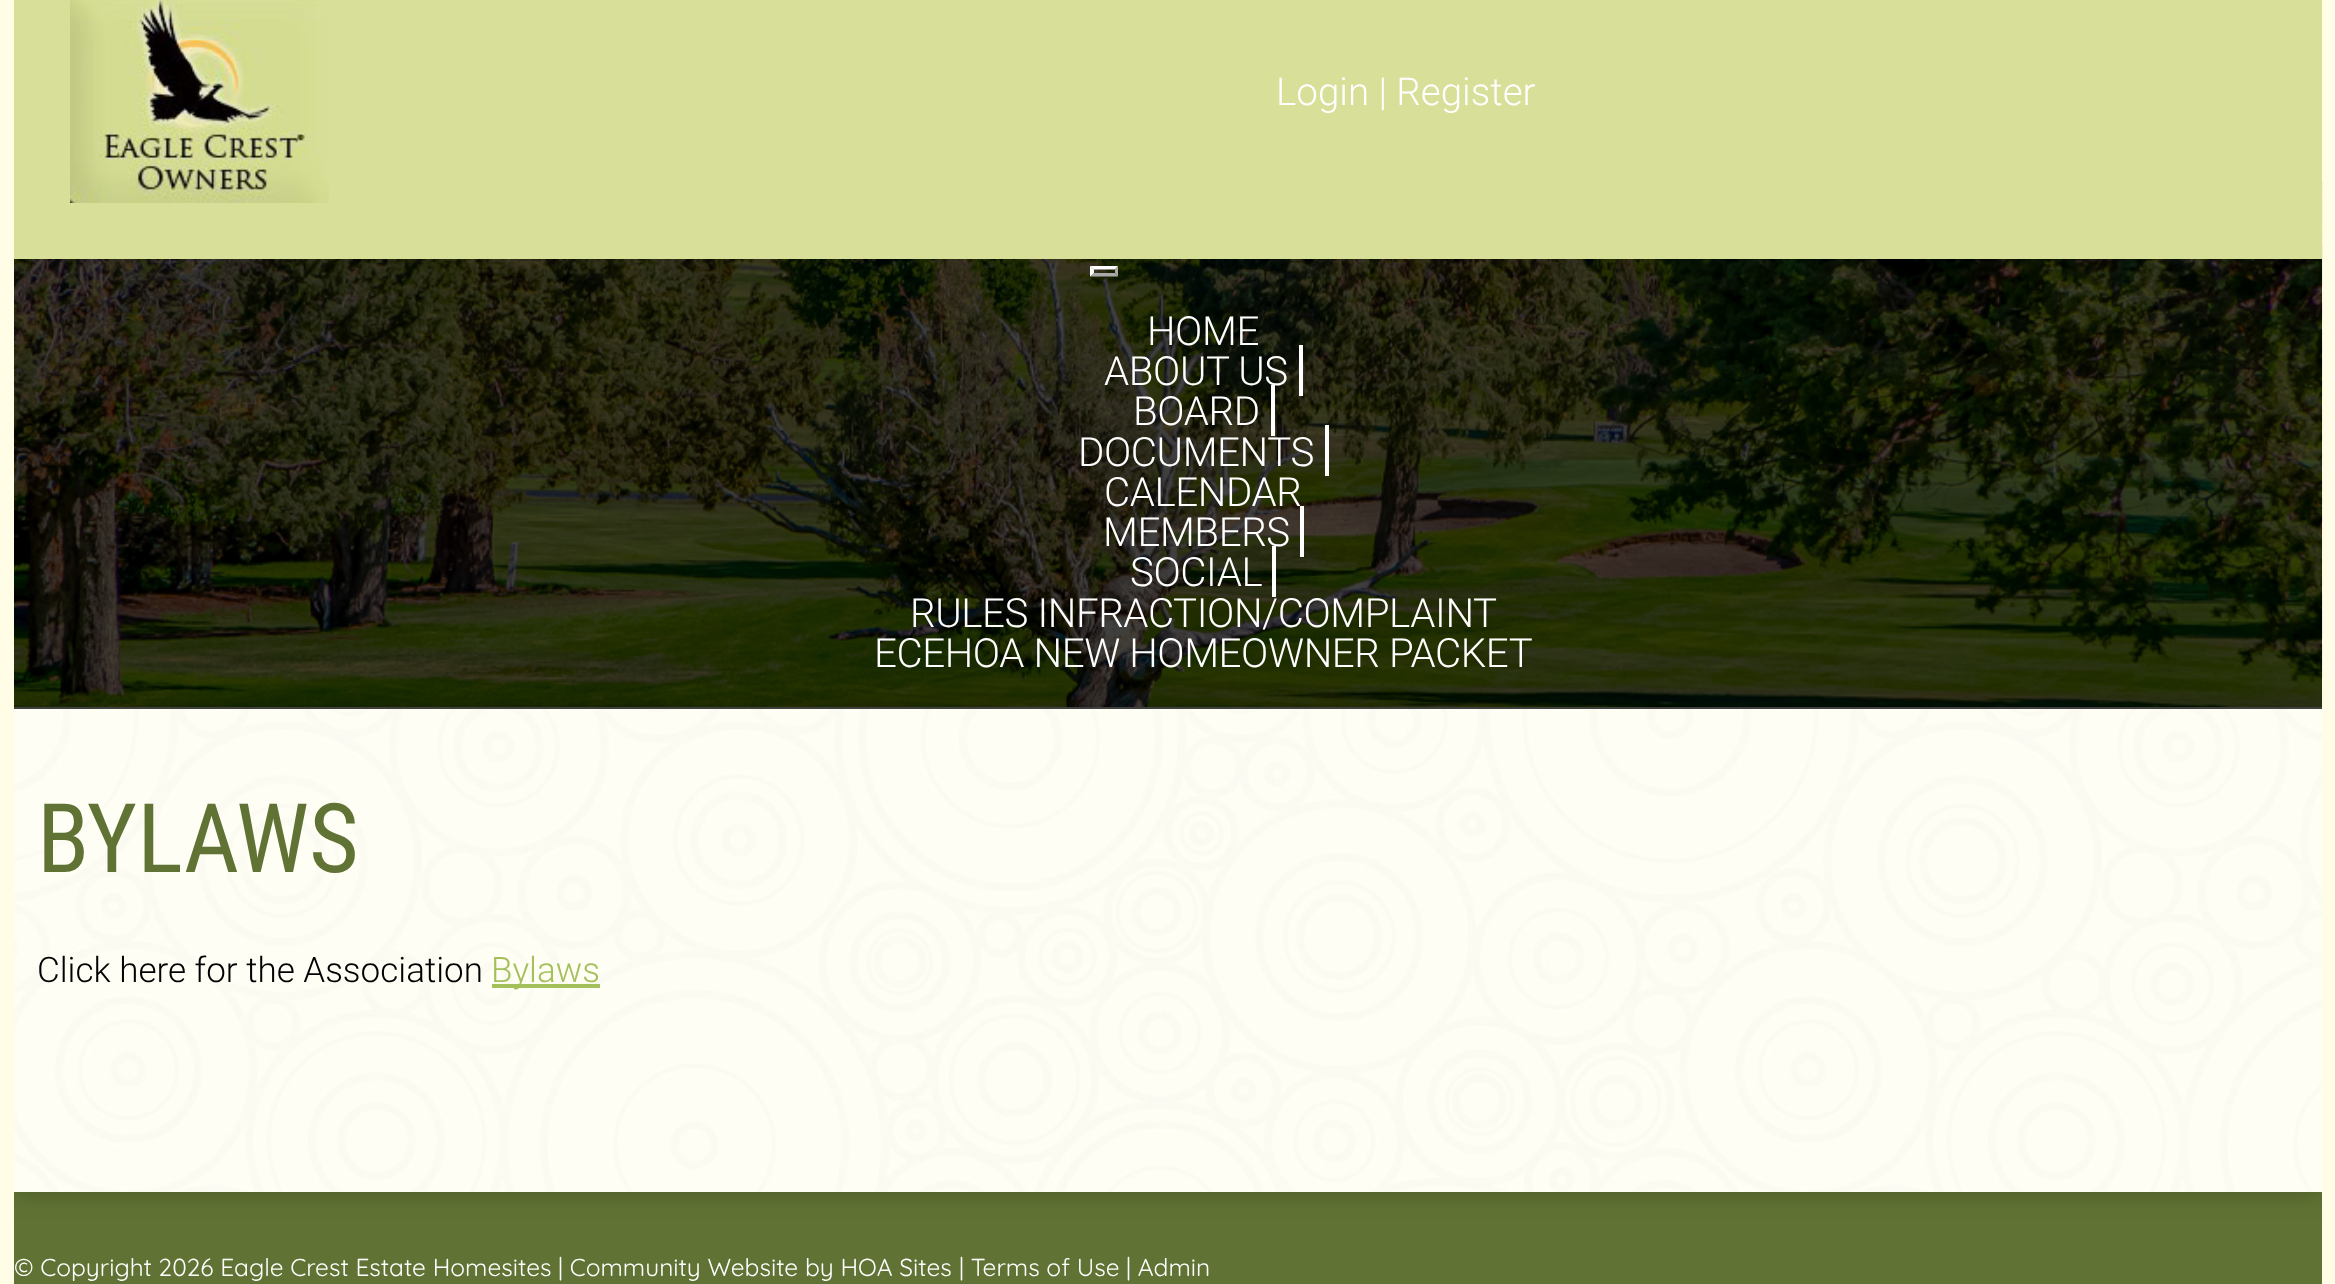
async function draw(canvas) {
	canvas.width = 2335;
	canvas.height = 1284;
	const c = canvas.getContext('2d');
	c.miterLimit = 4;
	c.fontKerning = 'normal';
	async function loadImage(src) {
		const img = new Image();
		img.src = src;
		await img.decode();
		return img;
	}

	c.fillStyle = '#fffde5';
	c.fillRect(0, 0, 2335, 1284);
	c.drawImage(await loadImage('img2.png'), 14, 182, 2309, 525);
	c.fillStyle = '#d8df99';
	c.fillRect(14, 0, 2308, 259);
	c.drawImage(await loadImage('img1.png'), 70, 0, 259, 203);
	c.font = '300 38.5px Roboto';
	c.fillStyle = '#fff';
	c.fillText('Login | Register', 1276, 105);
	c.drawImage(await loadImage('img3.png'), 14, 707, 2308, 485);
	c.fillStyle = '#617334';
	c.fillRect(14, 1192, 2308, 92);
	c.save();
	c.beginPath();
	c.rect(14, 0, 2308, 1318);
	c.clip();
	c.beginPath();
	c.moveTo(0, 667);
	c.lineTo(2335, 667);
	c.lineTo(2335, 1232);
	c.lineTo(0, 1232);
	c.closePath();
	c.moveTo(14, 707);
	c.lineTo(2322, 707);
	c.lineTo(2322, 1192);
	c.lineTo(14, 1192);
	c.closePath();
	c.clip('evenodd');
	c.fillStyle = '#01020240';
	c.filter = 'blur(13px)';
	c.beginPath();
	c.rect(14, 707, 2308, 485);
	c.fill();
	c.filter = 'none';
	c.restore();
	c.fillStyle = '#ffffff99';
	c.fillRect(14, 707, 2308, 485);
	c.fillStyle = '#000000bf';
	c.fillRect(14, 259, 2308, 450);
	c.fillStyle = '#fff';
	c.beginPath();
	c.moveTo(1090, 266);
	c.lineTo(1118, 266);
	c.lineTo(1115, 269.5);
	c.lineTo(1094, 269.5);
	c.closePath();
	c.fill();
	c.fillStyle = '#aaa';
	c.beginPath();
	c.moveTo(1118, 266);
	c.lineTo(1118, 276.5);
	c.lineTo(1115, 273);
	c.lineTo(1115, 269.5);
	c.closePath();
	c.fill();
	c.beginPath();
	c.moveTo(1118, 276.5);
	c.lineTo(1090, 276.5);
	c.lineTo(1094, 273);
	c.lineTo(1115, 273);
	c.closePath();
	c.fill();
	c.fillStyle = '#fff';
	c.beginPath();
	c.moveTo(1090, 276.5);
	c.lineTo(1090, 266);
	c.lineTo(1094, 269.5);
	c.lineTo(1094, 273);
	c.closePath();
	c.fill();
	c.letterSpacing = '-0.4px';
	c.font = '300 40.25px Roboto';
	c.fillText('HOME', 1147, 345);
	c.fillText('ABOUT US', 1104, 385);
	c.fillRect(1299, 345, 4, 51);
	c.fillText('BOARD', 1133, 425);
	c.fillRect(1271, 385, 4, 51);
	c.fillText('DOCUMENTS', 1078, 466);
	c.fillRect(1325, 425, 4, 51);
	c.fillText('CALENDAR', 1104, 506);
	c.fillText('MEMBERS', 1103, 546);
	c.fillRect(1300, 506, 4, 51);
	c.fillText('SOCIAL', 1130, 586);
	c.fillRect(1272, 546, 4, 51);
	c.fillText('RULES INFRACTION/COMPLAINT', 910, 627);
	c.fillText('ECEHOA NEW HOMEOWNER PACKET', 874, 667);
	c.letterSpacing = '0px';
	c.font = '96px Roboto Condensed';
	c.fillStyle = '#617334';
	c.fillText('BYLAWS', 37, 872);
	c.font = '300 35px Roboto';
	c.fillStyle = '#000';
	c.fillText('Click here for the Association', 37, 982);
	c.fillStyle = '#a3c05a';
	c.fillRect(492, 984, 108, 4);
	c.fillText('Bylaws', 491, 982);
	c.font = '300 24.5px Quicksand';
	c.fillStyle = '#fff';
	for (const [text, x, y] of [
		['© Copyright 2026 Eagle Crest Estate Homesites', 14, 1276],
		['| Community Website', 558, 1276],
		['by HOA Sites', 805, 1276],
		['| Terms of Use', 959, 1276],
		['| Admin', 1126, 1276],
	]) {
		c.fillText(text, x, y);
	}
}

draw(document.querySelector('canvas'));
